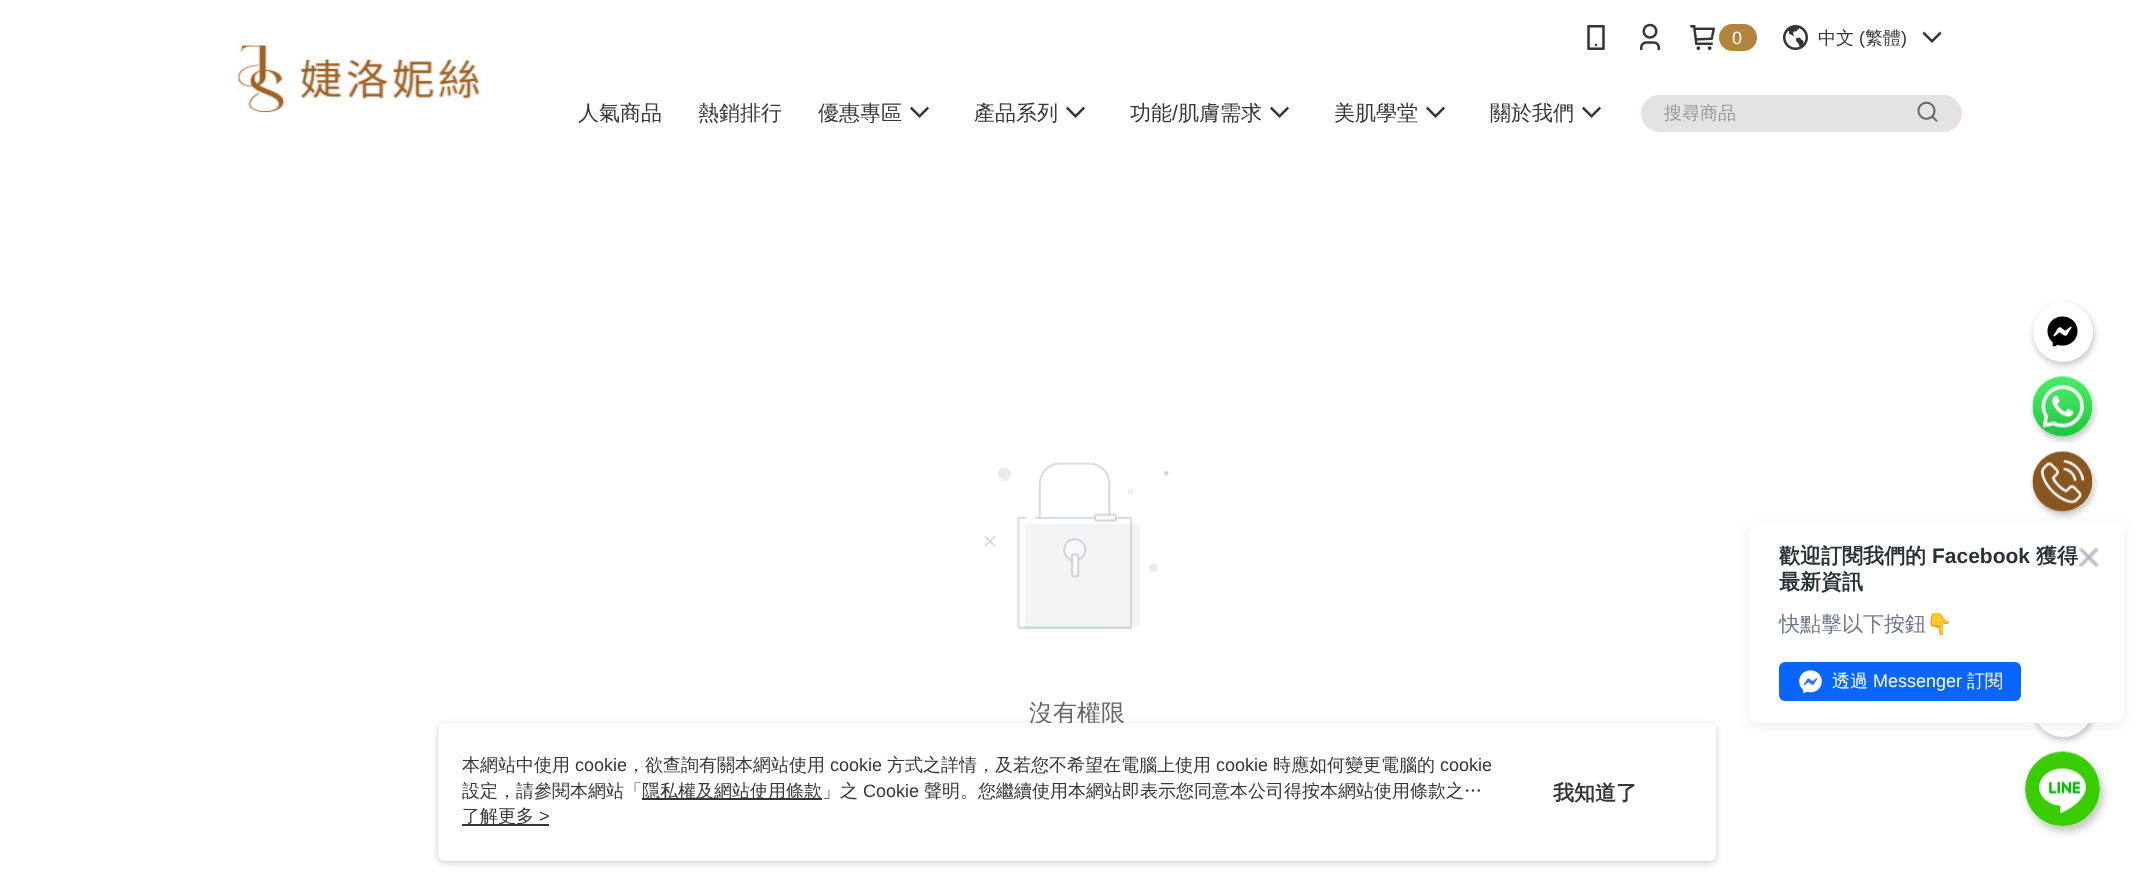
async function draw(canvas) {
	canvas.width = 2153;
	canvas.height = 880;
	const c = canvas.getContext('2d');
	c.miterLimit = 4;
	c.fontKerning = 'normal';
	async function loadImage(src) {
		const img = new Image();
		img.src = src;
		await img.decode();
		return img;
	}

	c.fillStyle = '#fff';
	c.fillRect(0, 0, 2153, 880);
	c.drawImage(await loadImage('img1.png'), 236, 39, 247, 79);
	c.drawImage(await loadImage('img2.png'), 1587, 25, 18, 25);
	c.drawImage(await loadImage('img3.png'), 1640, 23, 20, 27);
	c.drawImage(await loadImage('img4.png'), 1690, 25, 25, 25);
	c.fillStyle = '#b3843b';
	c.beginPath();
	c.roundRect(1719, 24, 38, 27, 13.5);
	c.fill();
	c.font = '18px Liberation Sans';
	c.fillStyle = '#fff';
	c.fillText('0', 1732, 44);
	c.drawImage(await loadImage('img5.png'), 1783, 25, 25, 25);
	c.font = '500 18px WenQuanYi Zen Hei';
	c.fillStyle = '#363636';
	c.fillText('中文', 1818, 44);
	c.font = '18px Liberation Sans';
	c.fillText('(', 1859, 44);
	c.font = '500 18px WenQuanYi Zen Hei';
	c.fillText('繁體', 1865, 44);
	c.font = '18px Liberation Sans';
	c.fillText(')', 1901, 44);
	c.beginPath();
	c.moveTo(1924, 31.5);
	c.lineTo(1922.5, 33.5);
	c.lineTo(1932, 43);
	c.lineTo(1941.5, 33.5);
	c.lineTo(1940, 31.5);
	c.lineTo(1932, 39.5);
	c.closePath();
	c.fill();
	c.font = '500 21px WenQuanYi Zen Hei';
	for (const [text, x, y] of [
		['人氣商品', 578, 120],
		['熱銷排行', 698, 120],
		['優惠專區', 818, 120],
	]) {
		c.fillText(text, x, y);
	}
	c.beginPath();
	c.moveTo(911.5, 106.5);
	c.lineTo(910, 108.5);
	c.lineTo(919.5, 118);
	c.lineTo(929, 108.5);
	c.lineTo(927.5, 106.5);
	c.lineTo(919.5, 114.5);
	c.closePath();
	c.fill();
	c.fillText('產品系列', 974, 120);
	c.beginPath();
	c.moveTo(1067.5, 106.5);
	c.lineTo(1066, 108.5);
	c.lineTo(1075.5, 118);
	c.lineTo(1085, 108.5);
	c.lineTo(1083.5, 106.5);
	c.lineTo(1075.5, 114.5);
	c.closePath();
	c.fill();
	c.fillText('功能', 1130, 120);
	c.font = '21px Liberation Sans';
	c.fillText('/', 1172, 120);
	c.font = '500 21px WenQuanYi Zen Hei';
	c.fillText('肌膚需求', 1178, 120);
	c.beginPath();
	c.moveTo(1271.5, 106.5);
	c.lineTo(1270, 108.5);
	c.lineTo(1279.5, 118);
	c.lineTo(1289, 108.5);
	c.lineTo(1287.5, 106.5);
	c.lineTo(1279.5, 114.5);
	c.closePath();
	c.fill();
	c.fillText('美肌學堂', 1334, 120);
	c.beginPath();
	c.moveTo(1427.5, 106.5);
	c.lineTo(1426, 108.5);
	c.lineTo(1435.5, 118);
	c.lineTo(1445, 108.5);
	c.lineTo(1443.5, 106.5);
	c.lineTo(1435.5, 114.5);
	c.closePath();
	c.fill();
	c.fillText('關於我們', 1490, 120);
	c.beginPath();
	c.moveTo(1583.5, 106.5);
	c.lineTo(1582, 108.5);
	c.lineTo(1591.5, 118);
	c.lineTo(1601, 108.5);
	c.lineTo(1599.5, 106.5);
	c.lineTo(1591.5, 114.5);
	c.closePath();
	c.fill();
	c.fillStyle = '#e4e2e2';
	c.beginPath();
	c.roundRect(1641, 95, 321, 37, 18.5);
	c.fill();
	c.font = '500 18px WenQuanYi Zen Hei';
	c.fillStyle = '#999';
	c.fillText('搜尋商品', 1664, 119);
	c.drawImage(await loadImage('img6.png'), 1917, 101, 21, 21);
	c.fillStyle = '#00000040';
	c.filter = 'blur(3.5px)';
	c.beginPath();
	c.roundRect(2034, 305, 60, 60, 30);
	c.fill();
	c.filter = 'none';
	c.fillStyle = '#fff';
	c.beginPath();
	c.arc(2063, 332, 30, 0, 2 * Math.PI);
	c.fill();
	c.drawImage(await loadImage('img7.png'), 2047, 316, 31, 31);
	c.fillStyle = '#00000040';
	c.filter = 'blur(3px)';
	c.beginPath();
	c.roundRect(2034, 380, 60, 60, 30);
	c.fill();
	c.filter = 'none';
	c.fillStyle = '#fff';
	c.beginPath();
	c.arc(2063, 407, 30, 0, 2 * Math.PI);
	c.fill();
	c.drawImage(await loadImage('img8.png'), 2032, 376, 61, 61);
	c.fillStyle = '#00000040';
	c.filter = 'blur(3px)';
	c.beginPath();
	c.roundRect(2034, 455, 60, 60, 30);
	c.fill();
	c.filter = 'none';
	c.fillStyle = '#fff';
	c.beginPath();
	c.arc(2063, 482, 30, 0, 2 * Math.PI);
	c.fill();
	c.drawImage(await loadImage('img9.png'), 2032, 451, 61, 61);
	c.fillStyle = '#00000040';
	c.filter = 'blur(3px)';
	c.beginPath();
	c.roundRect(2034, 680, 60, 60, 30);
	c.fill();
	c.filter = 'none';
	c.fillStyle = '#fff';
	c.beginPath();
	c.arc(2063, 707, 30, 0, 2 * Math.PI);
	c.fill();
	c.fillStyle = '#00000040';
	c.filter = 'blur(4px)';
	c.beginPath();
	c.roundRect(2028, 756, 75, 75, 37.5);
	c.fill();
	c.filter = 'none';
	c.fillStyle = '#fff';
	c.beginPath();
	c.arc(2062.5, 789.5, 37.5, 0, 2 * Math.PI);
	c.fill();
	c.drawImage(await loadImage('img10.png'), 2025, 751, 75, 76);
	c.drawImage(await loadImage('img11.png'), 984, 462, 185, 167);
	c.font = '500 24px WenQuanYi Zen Hei';
	c.fillStyle = '#666';
	c.fillText('沒有權限', 1029, 721);
	c.fillStyle = '#97979780';
	c.filter = 'blur(3px)';
	c.beginPath();
	c.roundRect(438, 725, 1278, 138, 6);
	c.fill();
	c.filter = 'none';
	c.fillStyle = '#fff';
	c.beginPath();
	c.roundRect(438, 723, 1278, 138, 6);
	c.fill();
	c.font = '500 18px WenQuanYi Zen Hei';
	c.fillStyle = '#363636';
	c.fillText('本網站中使用', 462, 771);
	c.font = '18px Liberation Sans';
	c.fillText('cookie', 575, 771);
	c.font = '500 18px WenQuanYi Zen Hei';
	c.fillText('，欲查詢有關本網站使用', 627, 771);
	c.font = '18px Liberation Sans';
	c.fillText('cookie', 830, 771);
	c.font = '500 18px WenQuanYi Zen Hei';
	c.fillText('方式之詳情，及若您不希望在電腦上使用', 887, 771);
	c.font = '18px Liberation Sans';
	c.fillText('cookie', 1216, 771);
	c.font = '500 18px WenQuanYi Zen Hei';
	c.fillText('時應如何變更電腦的', 1273, 771);
	c.font = '18px Liberation Sans';
	c.fillText('cookie', 1440, 771);
	c.font = '500 18px WenQuanYi Zen Hei';
	c.fillText('設定，請參閱本網站「', 462, 797);
	c.fillRect(642, 798, 180, 2);
	c.fillText('隱私權及網站使用條款」之', 642, 797);
	c.font = '18px Liberation Sans';
	c.fillText('Cookie', 863, 797);
	c.font = '500 18px WenQuanYi Zen Hei';
	c.fillText('聲明。您繼續使用本網站即表示您同意本公司得按本網站使用條款之…', 924, 797);
	c.fillRect(462, 824, 87, 2);
	c.fillText('了解更多', 462, 822);
	c.font = '18px Liberation Sans';
	c.fillText('>', 539, 822);
	c.font = 'bold 21px WenQuanYi Zen Hei';
	c.fillText('我知道了', 1553, 800);
	c.fillStyle = '#232f3517';
	c.filter = 'blur(6px)';
	c.beginPath();
	c.roundRect(1749, 524, 375, 202, 9);
	c.fill();
	c.filter = 'none';
	c.fillStyle = '#fff';
	c.beginPath();
	c.roundRect(1749, 521, 375, 202, 9);
	c.fill();
	c.fillStyle = '#263238';
	c.fillText('歡迎訂閱我們的', 1779, 563);
	c.font = 'bold 21px Liberation Sans';
	c.fillText('Facebook', 1932, 563);
	c.font = 'bold 21px WenQuanYi Zen Hei';
	c.fillText('獲得', 2036, 563);
	c.fillText('最新資訊', 1779, 589);
	c.drawImage(await loadImage('img12.png'), 2079, 547, 20, 20);
	c.font = '500 21px WenQuanYi Zen Hei';
	c.fillStyle = '#6e7a89';
	c.fillText('快點擊以下按鈕', 1779, 631);
	c.font = '21px Noto Color Emoji';
	c.fillText('👇', 1926, 631);
	c.fillStyle = '#0866ff';
	c.beginPath();
	c.roundRect(1779, 662, 242, 39, 6);
	c.fill();
	c.drawImage(await loadImage('img13.png'), 1799, 670, 23, 23);
	c.font = '500 18px WenQuanYi Zen Hei';
	c.fillStyle = '#fff';
	c.fillText('透過', 1832, 687);
	c.font = '18px Liberation Sans';
	c.fillText('Messenger', 1873, 687);
	c.font = '500 18px WenQuanYi Zen Hei';
	c.fillText('訂閱', 1967, 687);
}

draw(document.querySelector('canvas'));
